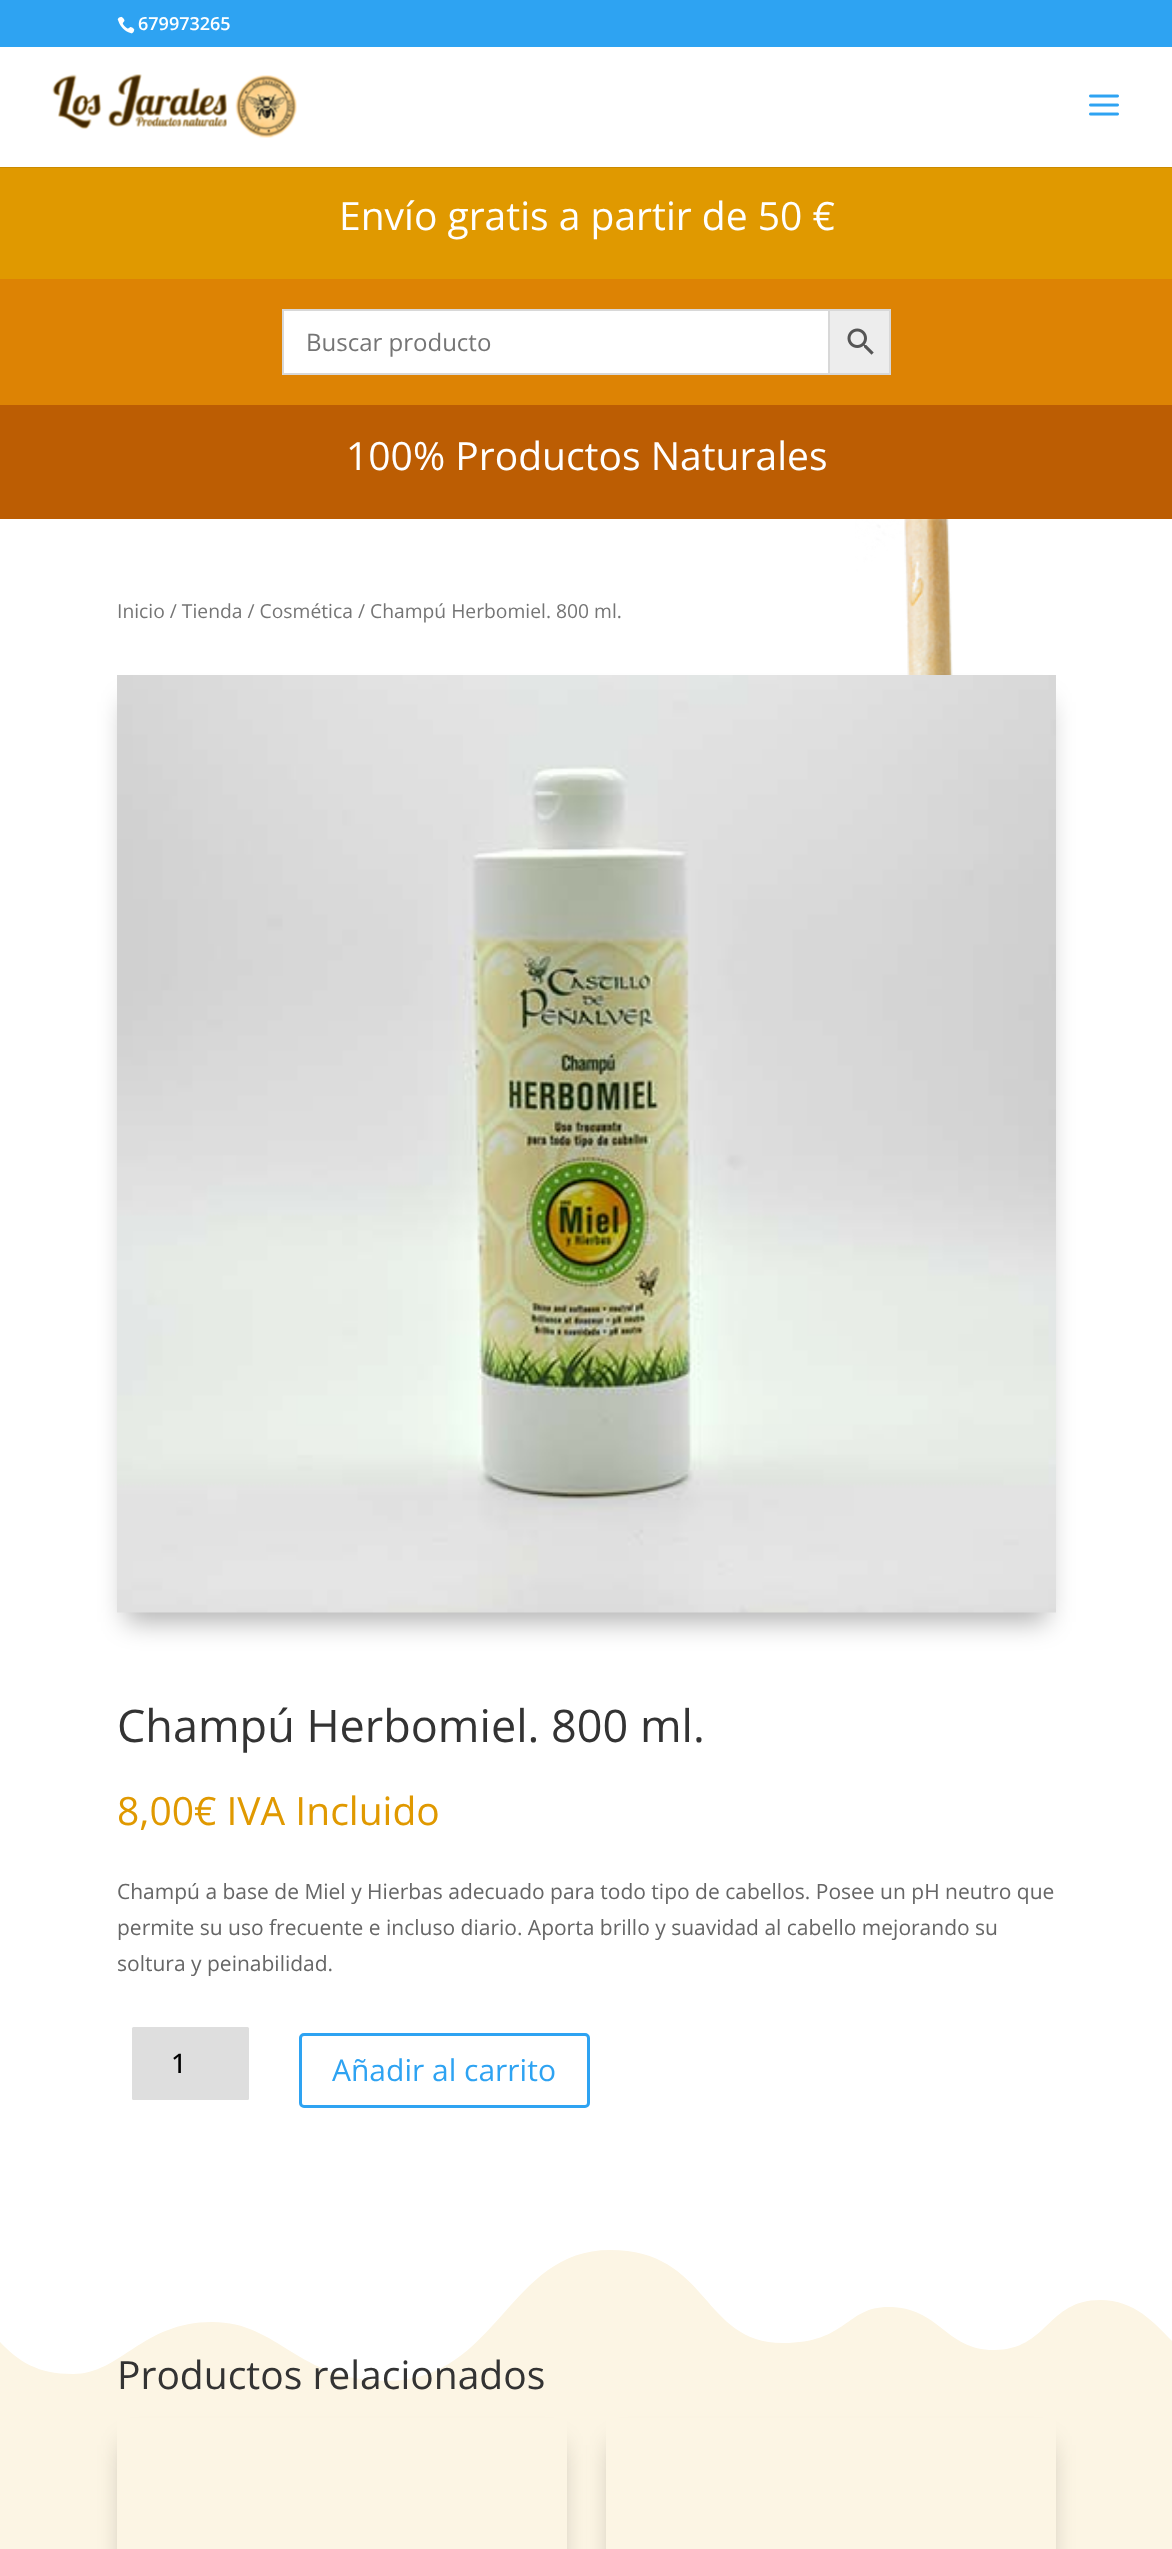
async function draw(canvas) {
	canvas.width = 1172;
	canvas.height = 2549;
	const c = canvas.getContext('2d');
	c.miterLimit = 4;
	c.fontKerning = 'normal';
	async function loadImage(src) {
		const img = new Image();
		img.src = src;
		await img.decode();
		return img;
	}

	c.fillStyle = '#fff';
	c.fillRect(0, 0, 1172, 2549);
	c.fillStyle = '#2ea3f2';
	c.fillRect(0, 0, 1172, 47);
	c.drawImage(await loadImage('img1.png'), 117, 16, 18, 18);
	c.font = '600 18px Open Sans';
	c.fillStyle = '#fff';
	c.fillText('679973265', 138, 30);
	c.fillStyle = '#ca8a00';
	c.fillRect(0, 167, 1172, 1);
	c.drawImage(await loadImage('img2.png'), 52, 74, 245, 64);
	c.drawImage(await loadImage('img3.png'), 1089, 94, 30, 22);
	c.fillStyle = '#e09900';
	c.fillRect(0, 168, 1172, 111);
	c.font = '39px Open Sans';
	c.fillStyle = '#fff';
	c.fillText('Envío gratis a partir de 50 €', 339, 230);
	c.fillStyle = '#dd8304';
	c.fillRect(0, 279, 1172, 126);
	c.fillStyle = '#ededed';
	c.beginPath();
	c.rect(829, 310, 61, 64);
	c.fill();
	c.strokeStyle = '#d8d8d8';
	c.lineWidth = 2;
	c.stroke();
	c.fillStyle = '#fff';
	c.beginPath();
	c.rect(283, 310, 546, 64);
	c.fill();
	c.stroke();
	c.font = '24px Open Sans';
	c.fillStyle = '#757575';
	c.fillText('Buscar producto', 306, 351);
	c.drawImage(await loadImage('img4.png'), 847, 328, 27, 27);
	c.fillStyle = '#bc5d03';
	c.fillRect(0, 405, 1172, 114);
	c.font = '39px Open Sans';
	c.fillStyle = '#fff';
	c.fillText('100% Productos Naturales', 346, 470);
	c.drawImage(await loadImage('img5.png'), 855, 519, 98, 156);
	c.font = '19.3px Open Sans';
	c.fillStyle = '#757575';
	c.fillText('Inicio / Tienda / Cosmética / Champú Herbomiel. 800 ml.', 117, 618);
	c.fillStyle = '#0000004d';
	c.filter = 'blur(13.5px)';
	c.beginPath();
	c.rect(126, 702, 921, 920);
	c.fill();
	c.filter = 'none';
	c.drawImage(await loadImage('img6.png'), 117, 675, 939, 938);
	c.font = '45px Open Sans';
	c.fillStyle = '#333';
	c.fillText('Champú Herbomiel. 800 ml.', 117, 1742);
	c.font = '39px Open Sans';
	c.fillStyle = '#e09900';
	c.fillText('8,00€ IVA Incluido', 117, 1825);
	c.font = '21px Open Sans';
	c.fillStyle = '#666';
	for (const [text, x, y] of [
		['Champú a base de Miel y Hierbas adecuado para todo tipo de cabellos. Posee un pH neutro que', 117, 1899],
		['permite su uso frecuente e incluso diario. Aporta brillo y suavidad al cabello mejorando su', 117, 1935],
		['soltura y peinabilidad.', 117, 1971],
	]) {
		c.fillText(text, x, y);
	}
	c.fillStyle = '#dedede';
	c.beginPath();
	c.roundRect(132, 2027, 117, 73, 1.5);
	c.fill();
	c.font = '500 27px Open Sans';
	c.fillStyle = '#000';
	c.fillText('1', 171, 2073);
	c.beginPath();
	c.roundRect(300.5, 2034.5, 288, 72, 3.5);
	c.strokeStyle = '#2ea3f2';
	c.lineWidth = 3;
	c.stroke();
	c.font = '30px Open Sans';
	c.fillStyle = '#2ea3f2';
	c.fillText('Añadir al carrito', 332, 2081);
	c.fillStyle = '#fcf5e4';
	c.fillRect(0, 2250, 1172, 299);
	c.fillStyle = '#fff';
	c.beginPath();
	c.moveTo(0, 2235);
	c.lineTo(0, 2342);
	c.bezierCurveTo(18, 2361, 37, 2374, 73, 2374);
	c.bezierCurveTo(121, 2374, 142, 2322, 212, 2322);
	c.bezierCurveTo(280, 2322, 296, 2381, 388, 2381);
	c.bezierCurveTo(498, 2380, 508, 2250, 610, 2250);
	c.bezierCurveTo(710, 2250, 701, 2343, 783, 2343);
	c.bezierCurveTo(847, 2343, 846, 2307, 888, 2307);
	c.bezierCurveTo(940, 2307, 945, 2350, 994, 2350);
	c.bezierCurveTo(1048, 2350, 1047, 2300, 1100, 2300);
	c.bezierCurveTo(1136, 2300, 1155, 2324, 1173, 2342);
	c.lineTo(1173, 2235);
	c.closePath();
	c.fill();
	c.font = '39px Open Sans';
	c.fillStyle = '#333';
	c.fillText('Productos relacionados', 117, 2389);
	c.save();
	c.beginPath();
	c.moveTo(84, 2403);
	c.lineTo(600, 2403);
	c.lineTo(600, 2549);
	c.lineTo(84, 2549);
	c.closePath();
	c.moveTo(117, 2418);
	c.lineTo(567, 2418);
	c.lineTo(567, 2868);
	c.lineTo(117, 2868);
	c.closePath();
	c.clip('evenodd');
	c.fillStyle = '#0000004d';
	c.filter = 'blur(13.5px)';
	c.beginPath();
	c.rect(126, 2445, 432, 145);
	c.fill();
	c.filter = 'none';
	c.restore();
	c.save();
	c.beginPath();
	c.moveTo(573, 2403);
	c.lineTo(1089, 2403);
	c.lineTo(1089, 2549);
	c.lineTo(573, 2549);
	c.closePath();
	c.moveTo(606, 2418);
	c.lineTo(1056, 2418);
	c.lineTo(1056, 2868);
	c.lineTo(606, 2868);
	c.closePath();
	c.clip('evenodd');
	c.fillStyle = '#0000004d';
	c.filter = 'blur(13.5px)';
	c.beginPath();
	c.rect(615, 2445, 432, 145);
	c.fill();
	c.filter = 'none';
	c.restore();
}

draw(document.querySelector('canvas'));
